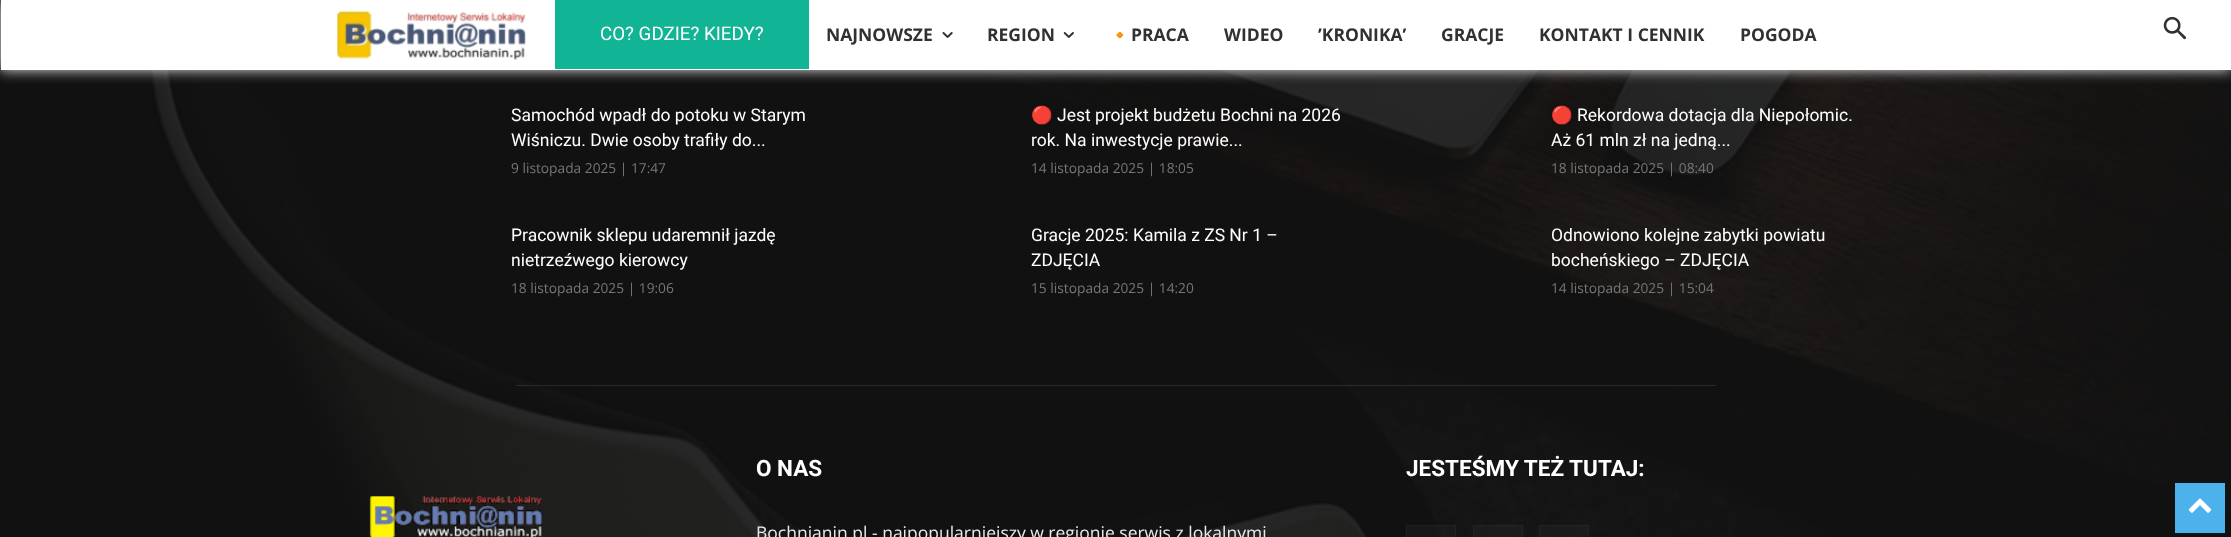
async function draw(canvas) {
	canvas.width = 2231;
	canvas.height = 537;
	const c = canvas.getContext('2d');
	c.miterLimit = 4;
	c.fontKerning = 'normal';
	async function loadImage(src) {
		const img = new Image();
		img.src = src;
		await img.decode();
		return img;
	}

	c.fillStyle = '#111';
	c.fillRect(0, 0, 2231, 537);
	c.drawImage(await loadImage('img5.png'), 151, 70, 2080, 467);
	c.fillStyle = '#eaeaea';
	c.filter = 'blur(7px)';
	c.beginPath();
	c.rect(0, 0, 2231, 70);
	c.fill();
	c.filter = 'none';
	c.fillStyle = '#fff';
	c.fillRect(1, 0, 2230, 70);
	c.drawImage(await loadImage('img1.png'), 337, 9, 189, 52);
	c.fillStyle = '#11b494';
	c.fillRect(555, 0, 254, 69);
	c.font = '18.75px Roboto';
	c.fillStyle = '#fff';
	c.fillText('CO? GDZIE? KIEDY?', 600, 40);
	c.font = 'bold 17.5px Open Sans';
	c.fillStyle = '#313131';
	c.fillText('NAJNOWSZE', 826, 41);
	c.drawImage(await loadImage('img2.png'), 942, 32, 11, 6);
	c.fillText('REGION', 987, 41);
	c.drawImage(await loadImage('img3.png'), 1063, 32, 11, 6);
	c.font = 'bold 17.5px Noto Color Emoji';
	c.fillText('🔸', 1109, 41);
	c.font = 'bold 17.5px Open Sans';
	for (const [text, x, y] of [
		['PRACA', 1131, 41],
		['WIDEO', 1224, 41],
		['’KRONIKA’', 1318, 41],
		['GRACJE', 1441, 41],
		['KONTAKT I CENNIK', 1539, 41],
		['POGODA', 1740, 41],
	]) {
		c.fillText(text, x, y);
	}
	c.drawImage(await loadImage('img4.png'), 2163, 16, 23, 24);
	c.font = '17.5px Roboto';
	c.fillStyle = '#fff';
	c.fillText('Samochód wpadł do potoku w Starym', 511, 121);
	c.fillText('Wiśniczu. Dwie osoby trafiły do...', 511, 146);
	c.font = '13.75px Open Sans';
	c.fillStyle = '#767676';
	c.fillText('9 listopada 2025 | 17:47', 511, 173);
	c.font = '17.5px Noto Color Emoji';
	c.fillStyle = '#fff';
	c.fillText('🔴', 1031, 121);
	c.font = '17.5px Roboto';
	c.fillText('Jest projekt budżetu Bochni na 2026', 1057, 121);
	c.fillText('rok. Na inwestycje prawie...', 1031, 146);
	c.font = '13.75px Open Sans';
	c.fillStyle = '#767676';
	c.fillText('14 listopada 2025 | 18:05', 1031, 173);
	c.font = '17.5px Noto Color Emoji';
	c.fillStyle = '#fff';
	c.fillText('🔴', 1551, 121);
	c.font = '17.5px Roboto';
	c.fillText('Rekordowa dotacja dla Niepołomic.', 1577, 121);
	c.fillText('Aż 61 mln zł na jedną...', 1551, 146);
	c.font = '13.75px Open Sans';
	c.fillStyle = '#767676';
	c.fillText('18 listopada 2025 | 08:40', 1551, 173);
	c.font = '17.5px Roboto';
	c.fillStyle = '#fff';
	c.fillText('Pracownik sklepu udaremnił jazdę', 511, 241);
	c.fillText('nietrzeźwego kierowcy', 511, 266);
	c.font = '13.75px Open Sans';
	c.fillStyle = '#767676';
	c.fillText('18 listopada 2025 | 19:06', 511, 293);
	c.font = '17.5px Roboto';
	c.fillStyle = '#fff';
	c.fillText('Gracje 2025: Kamila z ZS Nr 1 –', 1031, 241);
	c.fillText('ZDJĘCIA', 1031, 266);
	c.font = '13.75px Open Sans';
	c.fillStyle = '#767676';
	c.fillText('15 listopada 2025 | 14:20', 1031, 293);
	c.font = '17.5px Roboto';
	c.fillStyle = '#fff';
	c.fillText('Odnowiono kolejne zabytki powiatu', 1551, 241);
	c.fillText('bocheńskiego – ZDJĘCIA', 1551, 266);
	c.font = '13.75px Open Sans';
	c.fillStyle = '#767676';
	c.fillText('14 listopada 2025 | 15:04', 1551, 293);
	c.fillStyle = '#ffffff1a';
	c.fillRect(516, 385, 1200, 1);
	c.drawImage(await loadImage('img6.png'), 369, 496, 174, 41);
	c.font = 'bold 22.5px Roboto';
	c.fillStyle = '#fff';
	c.fillText('O NAS', 756, 476);
	c.font = '17.5px Open Sans';
	c.fillStyle = '#eaeaea';
	c.fillText('Bochnianin.pl - najpopularniejszy w regionie serwis z lokalnymi', 756, 539);
	c.font = 'bold 22.5px Roboto';
	c.fillStyle = '#fff';
	c.fillText('JESTEŚMY TEŻ TUTAJ:', 1406, 476);
	c.fillStyle = '#ffffff08';
	c.fillRect(1406, 525, 50, 12);
	c.strokeStyle = '#ffffff08';
	c.strokeRect(1406.5, 525.5, 49, 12);
	c.fillRect(1473, 525, 50, 12);
	c.strokeRect(1473.5, 525.5, 49, 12);
	c.fillRect(1539, 525, 50, 12);
	c.strokeRect(1539.5, 525.5, 49, 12);
	c.fillStyle = '#4db2ec';
	c.fillRect(2175, 483, 50, 50);
	c.drawImage(await loadImage('img7.png'), 2188, 498, 24, 15);
}

draw(document.querySelector('canvas'));
